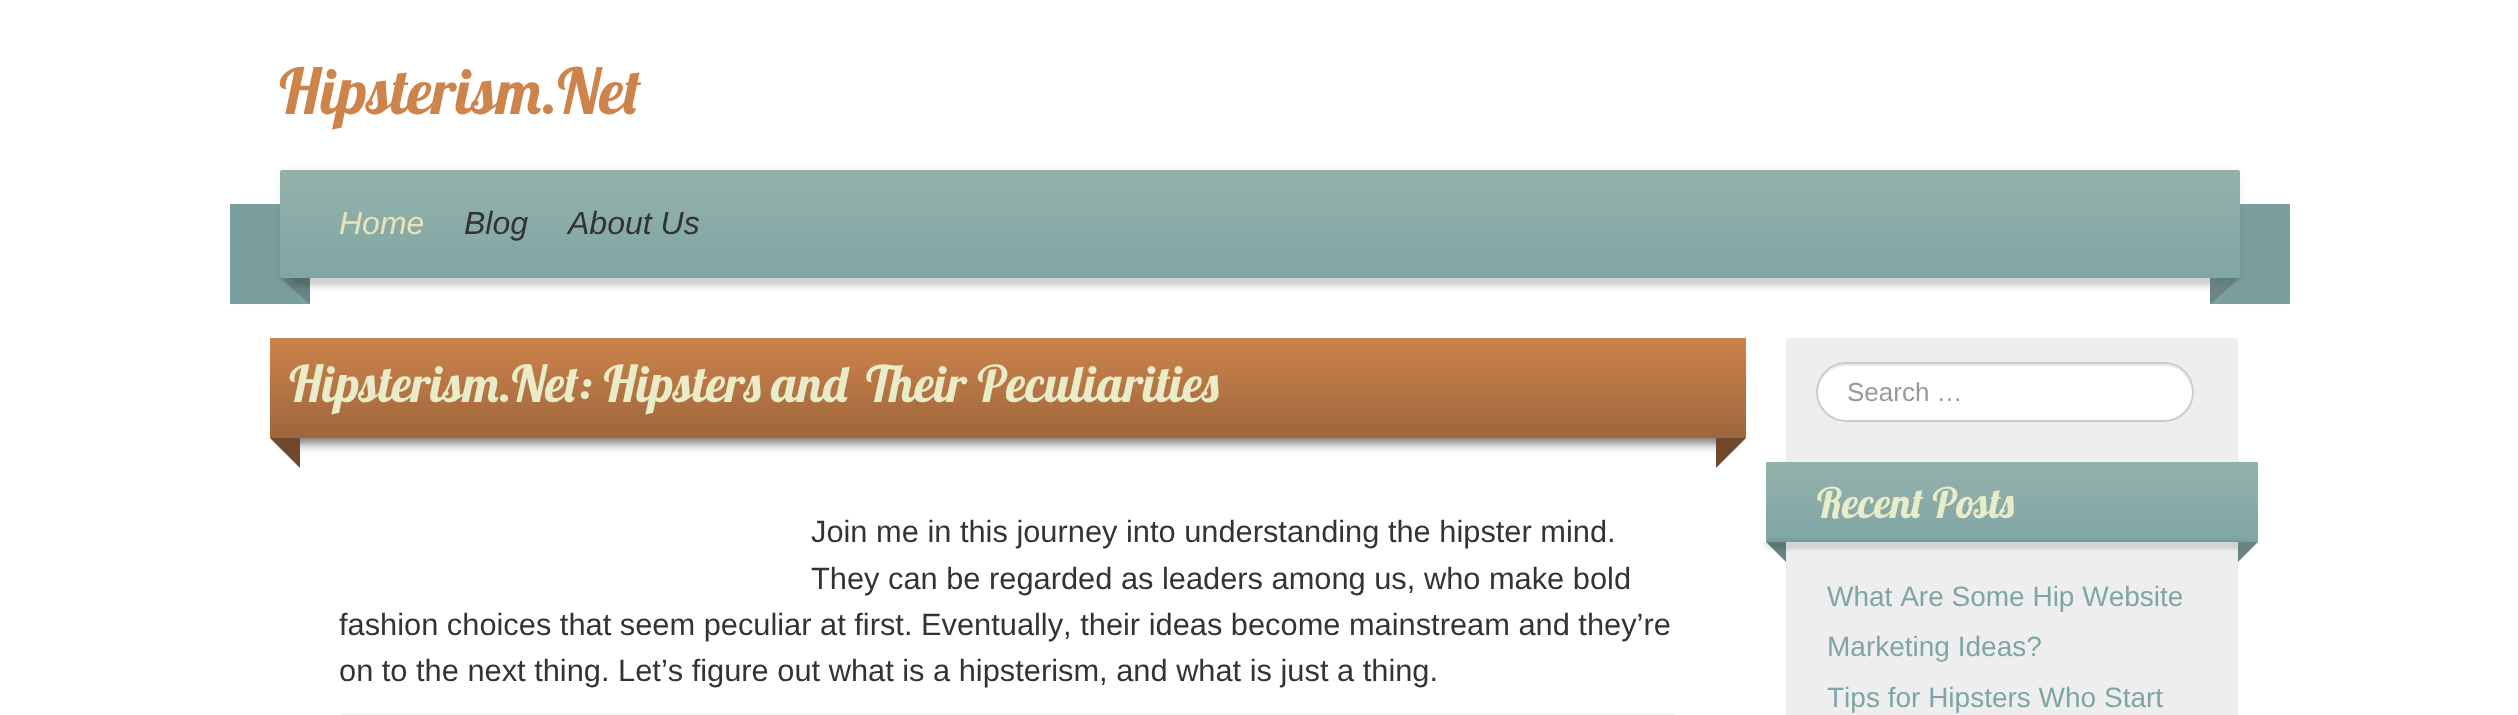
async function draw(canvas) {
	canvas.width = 2518;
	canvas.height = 715;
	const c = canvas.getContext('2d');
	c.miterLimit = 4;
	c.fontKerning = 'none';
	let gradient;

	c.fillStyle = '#fff';
	c.fillRect(0, 0, 2518, 715);
	c.font = '63px Lobster';
	c.fillStyle = '#cd834a';
	c.fillText('Hipsterism.Net', 279, 114);
	c.fillStyle = '#7b9e9e';
	c.fillRect(230, 204, 80, 100);
	c.fillRect(2210, 204, 80, 100);
	c.fillStyle = '#6a8484';
	c.beginPath();
	c.moveTo(280, 278);
	c.lineTo(310, 278);
	c.lineTo(310, 304);
	c.closePath();
	c.fill();
	c.fillStyle = '#000000e6';
	c.filter = 'blur(5px)';
	c.beginPath();
	c.rect(290, 280, 1930, 2);
	c.fill();
	c.filter = 'none';
	c.fillStyle = '#6a8484';
	c.beginPath();
	c.moveTo(2210, 304);
	c.lineTo(2210, 278);
	c.lineTo(2240, 278);
	c.closePath();
	c.fill();
	c.fillStyle = '#00000012';
	c.filter = 'blur(4px)';
	c.beginPath();
	c.roundRect(280, 172, 1960, 108, 2);
	c.fill();
	c.filter = 'none';
	gradient = c.createLinearGradient(1260, 170, 1260, 278);
	gradient.addColorStop(0, '#95b1a9');
	gradient.addColorStop(1, '#7fa6a6');
	c.fillStyle = gradient;
	c.beginPath();
	c.roundRect(280, 170, 1960, 108, 2);
	c.fill();
	c.font = 'italic 32px Liberation Sans';
	c.fillStyle = '#e9e3bb';
	c.fillText('Home', 339, 234);
	c.fillStyle = '#333';
	c.fillText('Blog', 464, 234);
	c.fillText('About Us', 568, 234);
	c.fillStyle = '#00000080';
	c.filter = 'blur(5px)';
	c.beginPath();
	c.rect(280, 364, 1456, 80);
	c.fill();
	c.filter = 'none';
	gradient = c.createLinearGradient(1008, 338, 1008, 438);
	gradient.addColorStop(0, '#cd834a');
	gradient.addColorStop(1, '#9e663d');
	c.fillStyle = gradient;
	c.fillRect(270, 338, 1476, 100);
	c.font = '50.4px Lobster';
	c.fillStyle = '#e9ecc9';
	c.fillText('Hipsterism.Net: Hipsters and', 289, 402);
	c.fillText('Their Peculiarities', 866, 402);
	c.fillStyle = '#70482b';
	c.beginPath();
	c.moveTo(300, 438);
	c.lineTo(300, 468);
	c.lineTo(270, 438);
	c.closePath();
	c.fill();
	c.beginPath();
	c.moveTo(1716, 468);
	c.lineTo(1716, 438);
	c.lineTo(1746, 438);
	c.closePath();
	c.fill();
	c.font = '30.8px Liberation Sans';
	c.fillStyle = '#333';
	for (const [text, x, y] of [
		['Join me in this journey into understanding the hipster mind.', 811, 542],
		['They can be regarded as leaders among us, who make bold', 811, 589],
		['fashion choices that seem peculiar at first. Eventually, their ideas become mainstream and they’re', 339, 635],
		['on to the next thing. Let’s figure out what is a hipsterism, and what is just a thing.', 339, 681],
	]) {
		c.fillText(text, x, y);
	}
	c.fillStyle = '#eee';
	c.beginPath();
	c.roundRect(340, 714, 1336, 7, 6);
	c.fill();
	c.fillRect(1786, 338, 452, 377);
	c.fillStyle = '#fff';
	c.beginPath();
	c.roundRect(1816, 362, 378, 60, 30);
	c.fill();
	c.fillStyle = '#ececec';
	c.beginPath();
	c.moveTo(1846, 366);
	c.lineTo(2164, 366);
	c.bezierCurveTo(2179, 366, 2191, 378, 2192, 393);
	c.lineTo(2192, 392);
	c.bezierCurveTo(2192, 377, 2179, 364, 2164, 364);
	c.lineTo(1846, 364);
	c.bezierCurveTo(1831, 364, 1818, 377, 1818, 392);
	c.lineTo(1818, 393);
	c.bezierCurveTo(1819, 378, 1831, 366, 1846, 366);
	c.closePath();
	c.fill();
	c.beginPath();
	c.roundRect(1817, 363, 376, 58, 29);
	c.strokeStyle = '#ccc';
	c.lineWidth = 2;
	c.stroke();
	c.font = '26px Liberation Sans';
	c.fillStyle = '#999';
	c.fillText('Search …', 1847, 401);
	gradient = c.createLinearGradient(2012, 462, 2012, 542);
	gradient.addColorStop(0, '#95b1a9');
	gradient.addColorStop(1, '#7fa6a6');
	c.fillStyle = gradient;
	c.fillRect(1766, 462, 492, 80);
	c.font = '42px Lobster';
	c.fillStyle = '#e9ecc9';
	c.fillText('Recent Posts', 1817, 518);
	c.fillStyle = '#6a8484';
	c.beginPath();
	c.moveTo(1766, 542);
	c.lineTo(1786, 542);
	c.lineTo(1786, 562);
	c.closePath();
	c.fill();
	c.fillStyle = '#00000080';
	c.filter = 'blur(3px)';
	c.beginPath();
	c.rect(1766, 544, 484, 2);
	c.fill();
	c.filter = 'none';
	c.fillStyle = '#6a8484';
	c.beginPath();
	c.moveTo(2238, 562);
	c.lineTo(2238, 542);
	c.lineTo(2258, 542);
	c.closePath();
	c.fill();
	c.font = '28px Liberation Sans';
	c.fillStyle = '#7fa6a6';
	for (const [text, x, y] of [
		['What Are Some Hip Website', 1827, 606],
		['Marketing Ideas?', 1827, 656],
		['Tips for Hipsters Who Start', 1827, 707],
	]) {
		c.fillText(text, x, y);
	}
}

draw(document.querySelector('canvas'));
